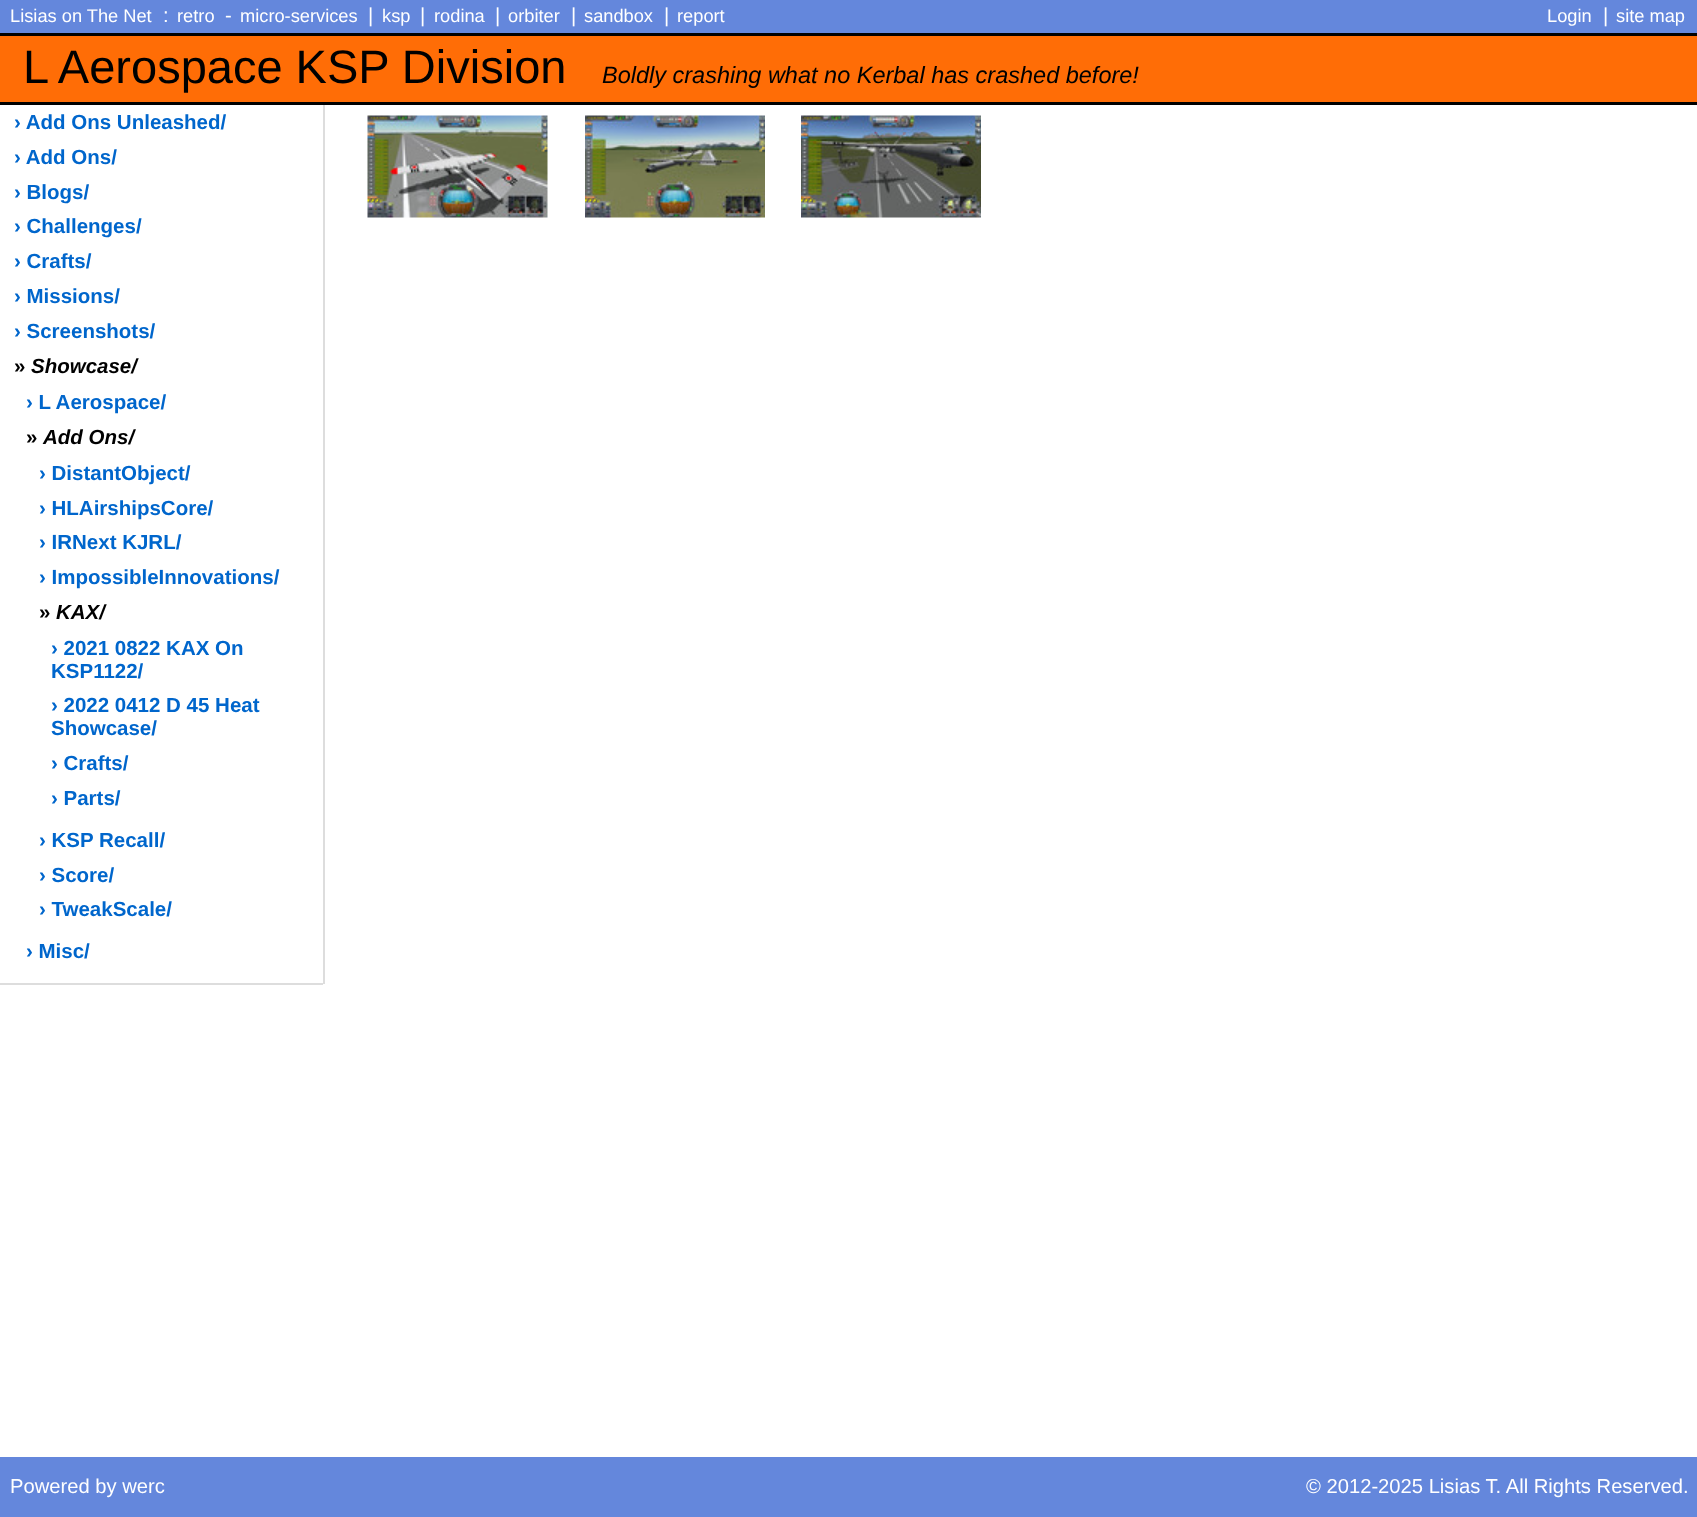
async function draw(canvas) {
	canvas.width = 1697;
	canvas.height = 1517;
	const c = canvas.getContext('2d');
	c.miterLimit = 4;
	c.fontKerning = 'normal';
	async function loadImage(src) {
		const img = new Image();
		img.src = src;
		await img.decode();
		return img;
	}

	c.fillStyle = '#fff';
	c.fillRect(0, 0, 1697, 1517);
	c.fillStyle = '#6487dc';
	c.fillRect(0, 0, 1697, 33);
	c.font = '18.25px Liberation Sans';
	c.fillStyle = '#fff';
	c.fillText('Lisias on The Net', 10, 22);
	c.font = '20.2px Liberation Sans';
	c.fillText(':', 163, 22);
	c.font = '18.25px Liberation Sans';
	c.fillText('retro', 177, 22);
	c.font = '20.2px Liberation Sans';
	c.fillText('-', 225, 22);
	c.font = '18.25px Liberation Sans';
	c.fillText('micro-services', 240, 22);
	c.font = '20.2px Liberation Sans';
	c.fillText('|', 368, 22);
	c.font = '18.25px Liberation Sans';
	c.fillText('ksp', 382, 22);
	c.font = '20.2px Liberation Sans';
	c.fillText('|', 420, 22);
	c.font = '18.25px Liberation Sans';
	c.fillText('rodina', 434, 22);
	c.font = '20.2px Liberation Sans';
	c.fillText('|', 495, 22);
	c.font = '18.25px Liberation Sans';
	c.fillText('orbiter', 508, 22);
	c.font = '20.2px Liberation Sans';
	c.fillText('|', 571, 22);
	c.font = '18.25px Liberation Sans';
	c.fillText('sandbox', 584, 22);
	c.font = '20.2px Liberation Sans';
	c.fillText('|', 664, 22);
	c.font = '18.25px Liberation Sans';
	c.fillText('report', 677, 22);
	c.fillText('Login', 1547, 22);
	c.font = '20.2px Liberation Sans';
	c.fillText('|', 1603, 22);
	c.font = '18.25px Liberation Sans';
	c.fillText('site map', 1616, 22);
	for (const [x, y, w, h, color] of [
		[0, 36, 1697, 66, '#ff6d06'],
		[0, 33, 1697, 3, '#000'],
		[0, 102, 1697, 3, '#000'],
	]) {
		c.fillStyle = color;
		c.fillRect(x, y, w, h);
	}
	c.font = '47px Liberation Sans';
	c.fillText('L Aerospace KSP Division', 23, 83);
	c.font = 'italic 23.5px Liberation Sans';
	c.fillText('Boldly crashing what no Kerbal has crashed before!', 602, 83);
	c.fillStyle = '#ddd';
	c.fillRect(323, 105, 2, 879);
	c.fillRect(0, 983, 323, 2);
	c.font = 'bold 20.5px Liberation Sans';
	c.fillStyle = '#06c';
	for (const [text, x, y] of [
		['› Add Ons Unleashed/', 14, 129],
		['› Add Ons/', 14, 164],
		['› Blogs/', 14, 199],
		['› Challenges/', 14, 233],
		['› Crafts/', 14, 268],
		['› Missions/', 14, 303],
		['› Screenshots/', 14, 338],
	]) {
		c.fillText(text, x, y);
	}
	c.fillStyle = '#000';
	c.fillText('»', 14, 373);
	c.font = 'italic bold 20.5px Liberation Sans';
	c.fillText('Showcase/', 31, 373);
	c.font = 'bold 20.5px Liberation Sans';
	c.fillStyle = '#06c';
	c.fillText('› L Aerospace/', 26, 409);
	c.fillStyle = '#000';
	c.fillText('»', 26, 444);
	c.font = 'italic bold 20.5px Liberation Sans';
	c.fillText('Add Ons/', 43, 444);
	c.font = 'bold 20.5px Liberation Sans';
	c.fillStyle = '#06c';
	for (const [text, x, y] of [
		['› DistantObject/', 39, 480],
		['› HLAirshipsCore/', 39, 515],
		['› IRNext KJRL/', 39, 549],
		['› ImpossibleInnovations/', 39, 584],
	]) {
		c.fillText(text, x, y);
	}
	c.fillStyle = '#000';
	c.fillText('»', 39, 619);
	c.font = 'italic bold 20.5px Liberation Sans';
	c.fillText('KAX/', 56, 619);
	c.font = 'bold 20.5px Liberation Sans';
	c.fillStyle = '#06c';
	for (const [text, x, y] of [
		['› 2021 0822 KAX On', 51, 655],
		['KSP1122/', 51, 678],
		['› 2022 0412 D 45 Heat', 51, 712],
		['Showcase/', 51, 735],
		['› Crafts/', 51, 770],
		['› Parts/', 51, 805],
		['› KSP Recall/', 39, 847],
		['› Score/', 39, 882],
		['› TweakScale/', 39, 916],
		['› Misc/', 26, 958],
	]) {
		c.fillText(text, x, y);
	}
	c.drawImage(await loadImage('img1.png'), 367, 115, 181, 103);
	c.drawImage(await loadImage('img2.png'), 585, 115, 180, 103);
	c.drawImage(await loadImage('img3.png'), 801, 115, 180, 103);
	c.fillStyle = '#6487dc';
	c.fillRect(0, 1457, 1697, 60);
	c.font = '20.2px Liberation Sans';
	c.fillStyle = '#fff';
	c.fillText('Powered by werc', 10, 1493);
	c.fillText('© 2012-2025 Lisias T. All Rights Reserved.', 1306, 1493);
}

draw(document.querySelector('canvas'));
